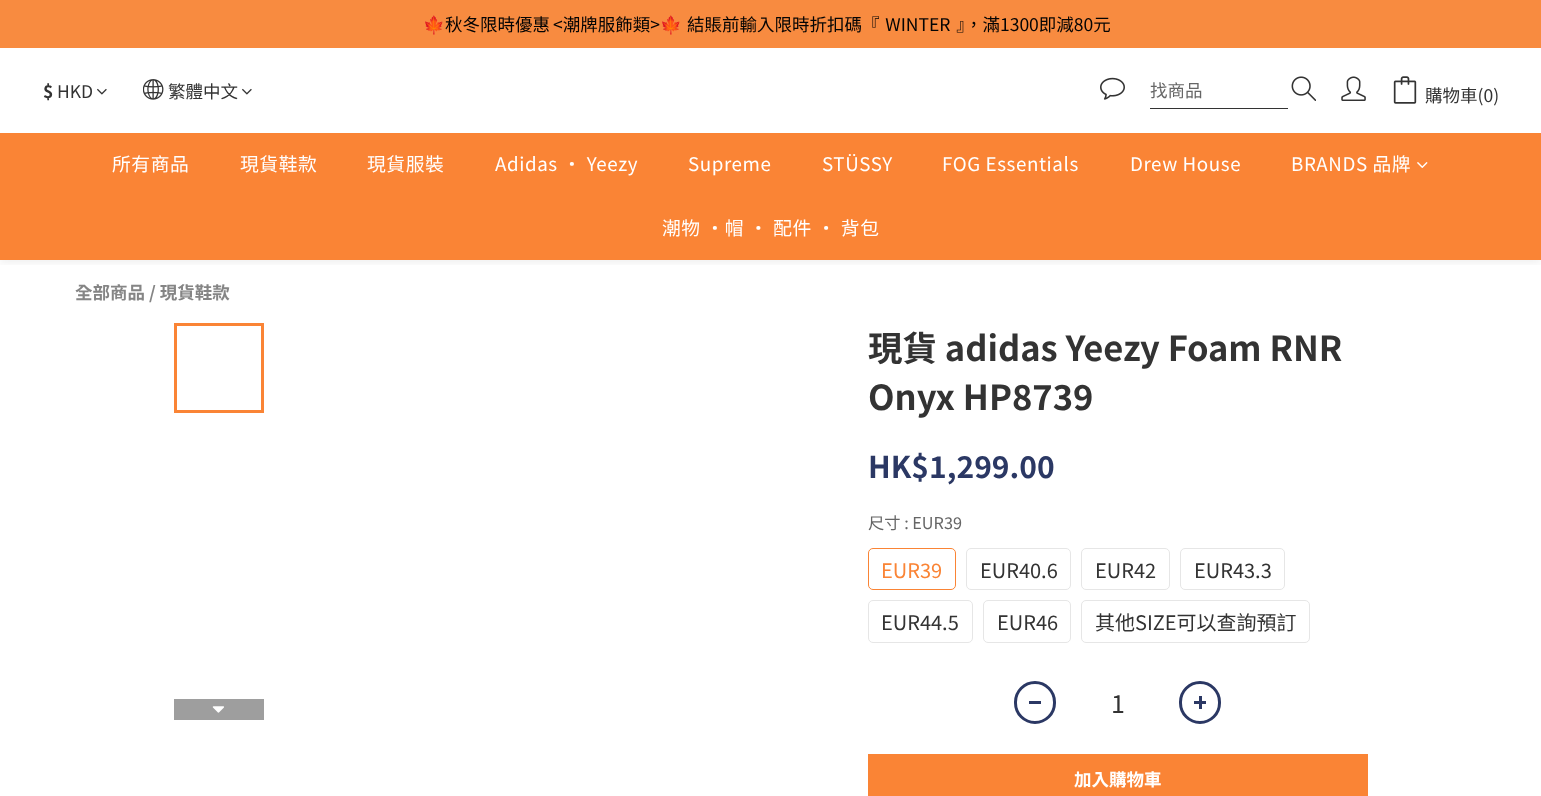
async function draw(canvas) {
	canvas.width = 1541;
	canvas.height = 796;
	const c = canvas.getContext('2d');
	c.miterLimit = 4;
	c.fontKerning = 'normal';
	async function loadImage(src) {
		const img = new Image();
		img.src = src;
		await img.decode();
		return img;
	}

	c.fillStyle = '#fff';
	c.fillRect(0, 0, 1541, 796);
	c.fillStyle = '#f88b40';
	c.fillRect(0, 0, 1541, 48);
	c.font = '17.5px Noto Color Emoji';
	c.fillStyle = '#040404';
	c.fillText('🍁', 423, 31);
	c.wordSpacing = '-1px';
	c.font = '17.5px Noto Sans TC';
	c.fillText('秋冬限時優惠 <潮牌服飾類>', 445, 31);
	c.wordSpacing = '0px';
	c.font = '17.5px Noto Color Emoji';
	c.fillText('🍁', 660, 31);
	c.wordSpacing = '-1px';
	c.font = '17.5px Noto Sans TC';
	c.fillText('結賬前輸入限時折扣碼『  WINTER  』，滿1300即減80元', 687, 31);
	c.save();
	c.beginPath();
	c.rect(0, 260, 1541, 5);
	c.clip();
	c.fillStyle = '#0000000f';
	c.filter = 'blur(4px)';
	c.beginPath();
	c.rect(0, 50, 1541, 213);
	c.fill();
	c.filter = 'none';
	c.restore();
	c.wordSpacing = '0px';
	c.font = 'bold 17.5px Noto Sans TC';
	c.fillStyle = '#333';
	c.fillText('$', 43, 98);
	c.font = '17.5px Noto Sans TC';
	c.fillText('HKD', 57, 98);
	c.drawImage(await loadImage('img1.png'), 97, 88, 10, 7);
	c.drawImage(await loadImage('img2.png'), 143, 79, 21, 21);
	c.fillText('繁體中文', 168, 98);
	c.drawImage(await loadImage('img1.png'), 242, 88, 10, 7);
	c.drawImage(await loadImage('img3.png'), 1100, 77, 25, 23);
	c.fillRect(1150, 108, 138, 1);
	c.fillStyle = '#666';
	c.fillText('找商品', 1150, 97);
	c.drawImage(await loadImage('img4.png'), 1291, 76, 25, 25);
	c.drawImage(await loadImage('img5.png'), 1341, 76, 25, 25);
	c.drawImage(await loadImage('img6.png'), 1393, 76, 24, 28);
	c.fillStyle = '#333';
	c.fillText('購物車(0)', 1425, 102);
	c.fillStyle = '#fa8435';
	c.fillRect(0, 133, 1541, 127);
	c.letterSpacing = '0.6px';
	c.font = '18.75px Noto Sans TC';
	c.fillStyle = '#fff';
	for (const [text, x, y] of [
		['所有商品', 112, 171],
		['現貨鞋款', 240, 171],
		['現貨服裝', 367, 171],
		['Adidas · Yeezy', 495, 171],
		['Supreme', 688, 171],
		['STÜSSY', 822, 171],
		['FOG Essentials', 942, 171],
		['Drew House', 1130, 171],
		['BRANDS 品牌', 1291, 171],
	]) {
		c.fillText(text, x, y);
	}
	c.drawImage(await loadImage('img7.png'), 1417, 162, 11, 6);
	c.fillText('潮物 ·帽 · 配件 · 背包', 662, 235);
	c.letterSpacing = '0px';
	c.font = 'bold 17.5px Noto Sans TC';
	c.fillStyle = '#858585';
	c.fillText('全部商品 / 現貨鞋款', 75, 299);
	c.strokeStyle = '#fa8435';
	c.lineWidth = 3;
	c.strokeRect(175.5, 324.5, 87, 87);
	c.fillStyle = '#9e9e9e';
	c.fillRect(174, 699, 90, 21);
	c.drawImage(await loadImage('img8.png'), 212, 706, 12, 7);
	c.font = 'bold 34.5px Noto Sans TC';
	c.fillStyle = '#333';
	c.fillText('現貨 adidas Yeezy Foam RNR', 868, 361);
	c.fillText('Onyx HP8739', 868, 410);
	c.font = 'bold 30px Noto Sans TC';
	c.fillStyle = '#2b3864';
	c.fillText('HK$1,299.00', 868, 478);
	c.font = '16.25px Noto Sans TC';
	c.fillStyle = '#666';
	c.fillText('尺寸 : EUR39', 868, 529);
	c.beginPath();
	c.roundRect(868.5, 548.5, 87, 41, 4.5);
	c.lineWidth = 1;
	c.stroke();
	c.font = '20px Noto Sans TC';
	c.fillStyle = '#fa8435';
	c.fillText('EUR39', 881, 578);
	c.beginPath();
	c.roundRect(966.5, 548.5, 104, 41, 4.5);
	c.strokeStyle = '#e6e6e6';
	c.stroke();
	c.fillStyle = '#333';
	c.fillText('EUR40.6', 980, 578);
	c.beginPath();
	c.roundRect(1081.5, 548.5, 88, 41, 4.5);
	c.stroke();
	c.fillText('EUR42', 1095, 578);
	c.beginPath();
	c.roundRect(1180.5, 548.5, 104, 41, 4.5);
	c.stroke();
	c.fillText('EUR43.3', 1194, 578);
	c.beginPath();
	c.roundRect(868.5, 600.5, 104, 42, 4.5);
	c.stroke();
	c.fillText('EUR44.5', 881, 630);
	c.beginPath();
	c.roundRect(983.5, 600.5, 87, 42, 4.5);
	c.stroke();
	c.fillText('EUR46', 997, 630);
	c.beginPath();
	c.roundRect(1081.5, 600.5, 228, 42, 4.5);
	c.stroke();
	c.fillText('其他SIZE可以查詢預訂', 1095, 630);
	c.beginPath();
	c.roundRect(1015.5, 682.5, 39, 40, 19.5);
	c.strokeStyle = '#2b3864';
	c.lineWidth = 3;
	c.stroke();
	c.fillStyle = '#2b3864';
	c.fillRect(1029, 701, 12, 3);
	c.font = '25px Noto Sans TC';
	c.fillStyle = '#333';
	c.fillText('1', 1111, 713);
	c.beginPath();
	c.roundRect(1180.5, 682.5, 39, 40, 19.5);
	c.stroke();
	for (const [x, y, w, h, color] of [
		[1194, 701, 12, 3, '#2b3864'],
		[1199, 696, 3, 13, '#2b3864'],
		[868, 754, 500, 42, '#fa8435'],
	]) {
		c.fillStyle = color;
		c.fillRect(x, y, w, h);
	}
	c.font = 'bold 17.5px Noto Sans TC';
	c.fillStyle = '#fff';
	c.fillText('加入購物車', 1074, 786);
}

draw(document.querySelector('canvas'));
